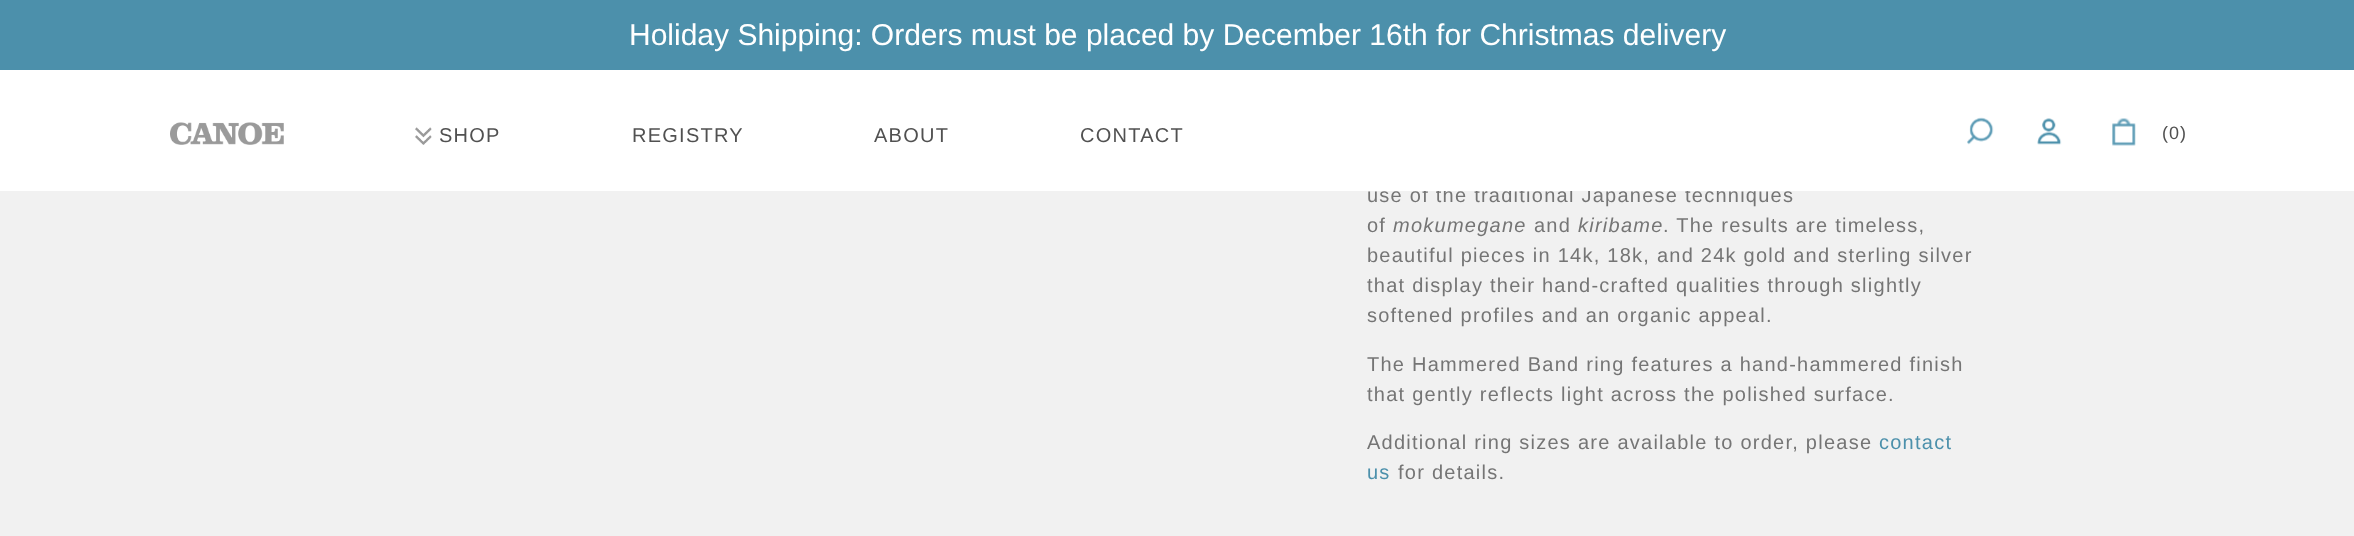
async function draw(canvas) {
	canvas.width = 2354;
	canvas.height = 536;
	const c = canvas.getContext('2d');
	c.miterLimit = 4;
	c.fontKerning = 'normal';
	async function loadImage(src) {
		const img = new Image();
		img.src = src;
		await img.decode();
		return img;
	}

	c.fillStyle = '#f1f1f1';
	c.fillRect(0, 0, 2354, 536);
	c.fillStyle = '#4c90ab';
	c.fillRect(0, 0, 2354, 70);
	c.font = '30px Liberation Sans';
	c.fillStyle = '#fff';
	c.fillText('Holiday Shipping: Orders must be placed by December 16th for Christmas delivery', 629, 45);
	c.letterSpacing = '1.25px';
	c.font = '20px Liberation Sans';
	c.fillStyle = '#757575';
	c.fillText('use of the traditional Japanese techniques', 1367, 202);
	c.fillStyle = '#fff';
	c.fillRect(0, 70, 2354, 121);
	c.drawImage(await loadImage('img1.png'), 170, 122, 114, 23);
	c.drawImage(await loadImage('img2.png'), 415, 127, 17, 18);
	c.fillStyle = '#515151';
	for (const [text, x, y] of [
		['SHOP', 439, 142],
		['REGISTRY', 632, 142],
		['ABOUT', 874, 142],
		['CONTACT', 1080, 142],
	]) {
		c.fillText(text, x, y);
	}
	c.drawImage(await loadImage('img3.png'), 1967, 117, 27, 28);
	c.drawImage(await loadImage('img4.png'), 2037, 118, 25, 27);
	c.drawImage(await loadImage('img5.png'), 2112, 118, 24, 28);
	c.letterSpacing = '1px';
	c.font = '18px Liberation Sans';
	c.fillText('(0)', 2162, 139);
	c.letterSpacing = '1.25px';
	c.font = '20px Liberation Sans';
	c.fillStyle = '#757575';
	c.fillText('of', 1367, 232);
	c.font = 'italic 20px Liberation Sans';
	c.fillText('mokumegane', 1393, 232);
	c.font = '20px Liberation Sans';
	c.fillText('and', 1534, 232);
	c.font = 'italic 20px Liberation Sans';
	c.fillText('kiribame', 1578, 232);
	c.font = '20px Liberation Sans';
	for (const [text, x, y] of [
		['. The results are timeless,', 1663, 232],
		['beautiful pieces in 14k, 18k, and 24k gold and sterling silver', 1367, 262],
		['that display their hand-crafted qualities through slightly', 1367, 292],
		['softened profiles and an organic appeal.', 1367, 322],
		['The Hammered Band ring features a hand-hammered finish', 1367, 371],
		['that gently reflects light across the polished surface.', 1367, 401],
		['Additional ring sizes are available to order, please', 1367, 449],
	]) {
		c.fillText(text, x, y);
	}
	c.fillStyle = '#4c90ab';
	c.fillText('contact', 1879, 449);
	c.fillText('us', 1367, 479);
	c.fillStyle = '#757575';
	c.fillText('for details.', 1398, 479);
}

draw(document.querySelector('canvas'));
